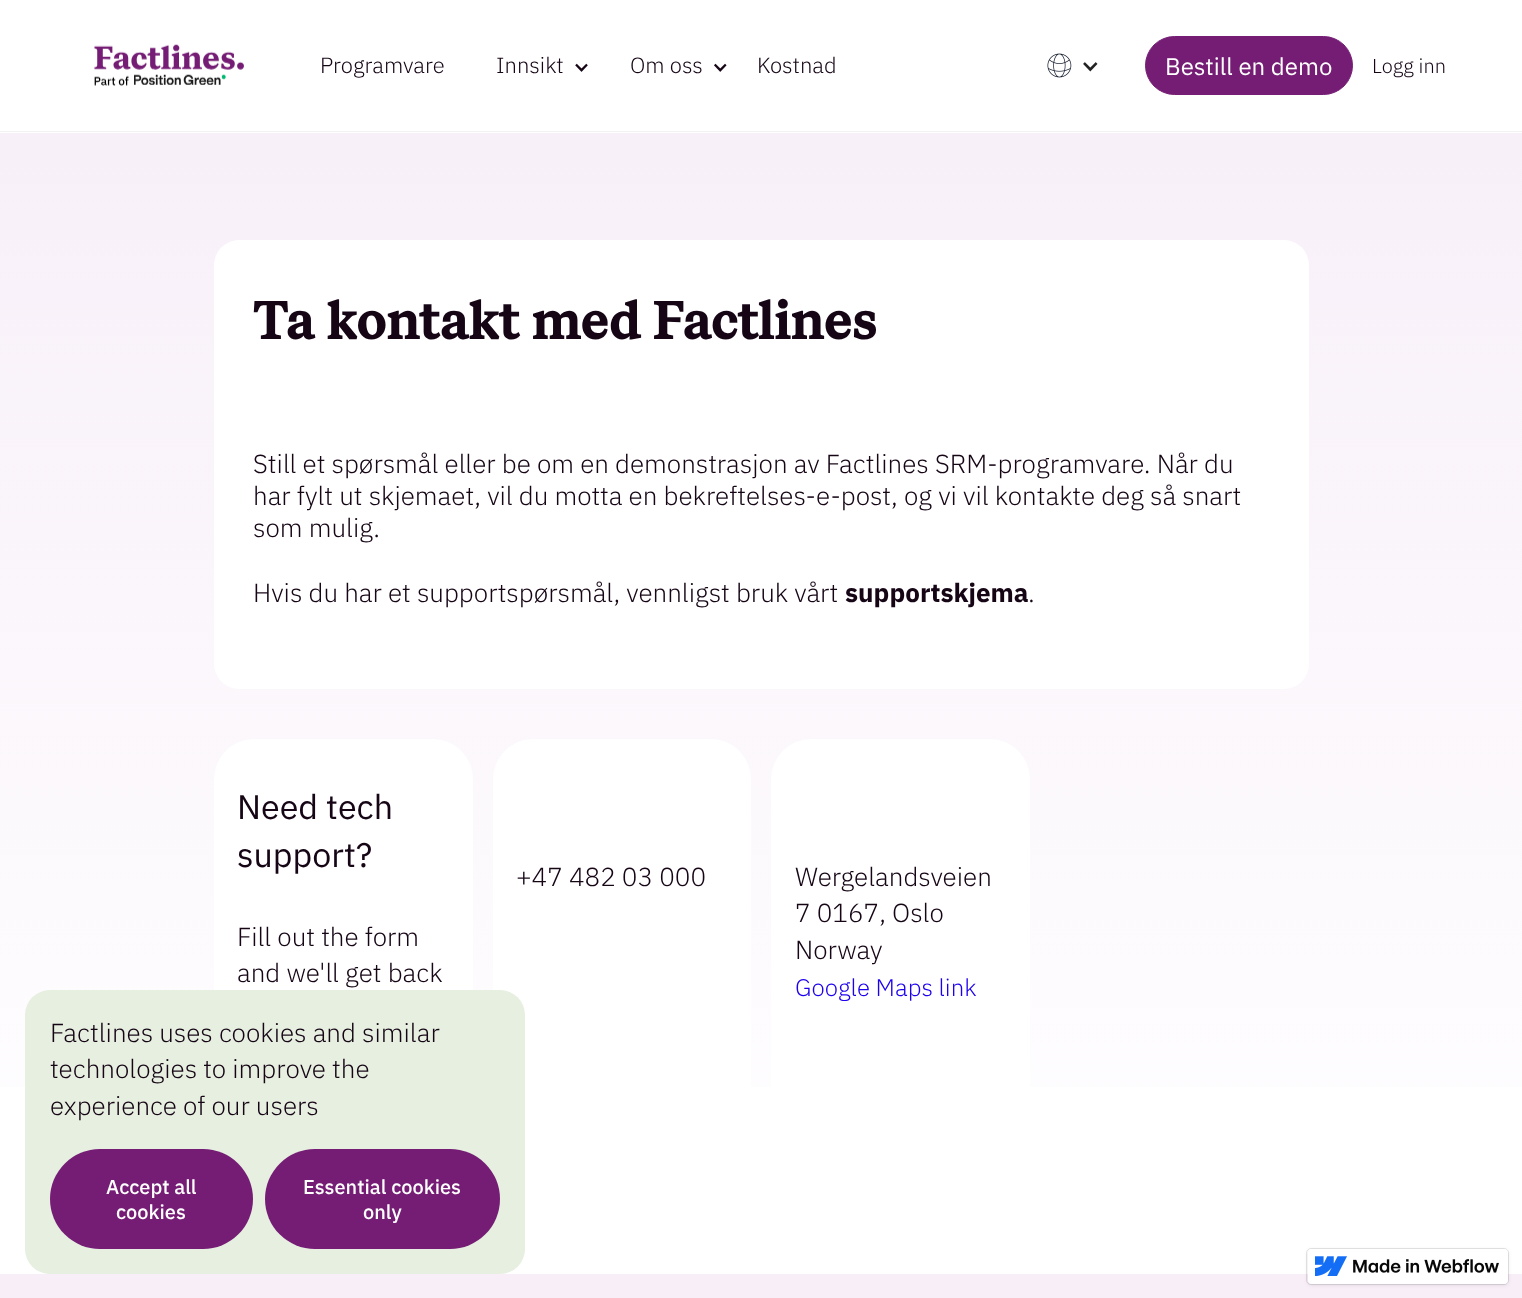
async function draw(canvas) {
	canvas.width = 1522;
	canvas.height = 1298;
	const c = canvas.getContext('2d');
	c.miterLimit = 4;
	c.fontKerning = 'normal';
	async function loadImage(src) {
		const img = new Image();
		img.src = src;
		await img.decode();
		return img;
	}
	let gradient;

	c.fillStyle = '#fff';
	c.fillRect(0, 0, 1522, 1298);
	c.fillStyle = '#f2f2f2';
	c.fillRect(0, 131, 1522, 1);
	c.drawImage(await loadImage('img1.png'), 94, 44, 150, 42);
	c.font = '300 22px IBM Plex Sans';
	c.fillStyle = '#150515';
	c.fillText('Programvare', 320, 73);
	c.fillText('Innsikt', 496, 73);
	c.drawImage(await loadImage('img2.png'), 575, 63, 13, 9);
	c.fillText('Om oss', 630, 73);
	c.drawImage(await loadImage('img3.png'), 714, 63, 13, 9);
	c.fillText('Kostnad', 757, 73);
	c.drawImage(await loadImage('img4.png'), 1047, 53, 25, 25);
	c.drawImage(await loadImage('img5.png'), 1083, 62, 15, 10);
	c.fillStyle = '#751d75';
	c.beginPath();
	c.roundRect(1145.5, 36.5, 207, 58, 29);
	c.fill();
	c.strokeStyle = '#751d75';
	c.stroke();
	c.font = '24px IBM Plex Sans';
	c.fillStyle = '#fff';
	c.fillText('Bestill en demo', 1165, 75);
	c.font = '300 20px IBM Plex Sans';
	c.fillStyle = '#150515';
	c.fillText('Logg inn', 1372, 73);
	gradient = c.createLinearGradient(761, 0, 761, 1274);
	gradient.addColorStop(0, '#f7eef8');
	gradient.addColorStop(1, '#fff');
	c.fillStyle = gradient;
	c.fillRect(0, 133, 1522, 954);
	c.fillStyle = '#fff';
	c.beginPath();
	c.roundRect(214, 240, 1095, 449, 25);
	c.fill();
	c.font = 'bold 52.5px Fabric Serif';
	c.fillStyle = '#150515';
	c.fillText('Ta kontakt med Factlines', 253, 339);
	c.font = '300 26px IBM Plex Sans';
	for (const [text, x, y] of [
		['Still et spørsmål eller be om en demonstrasjon av Factlines SRM-programvare. Når du', 253, 473],
		['har fylt ut skjemaet, vil du motta en bekreftelses-e-post, og vi vil kontakte deg så snart', 253, 505],
		['som mulig.', 253, 537],
		['Hvis du har et supportspørsmål, vennligst bruk vårt', 253, 602],
	]) {
		c.fillText(text, x, y);
	}
	c.font = 'bold 26px IBM Plex Sans';
	c.fillText('supportskjema', 845, 602);
	c.font = '300 26px IBM Plex Sans';
	c.fillText('.', 1028, 602);
	c.fillStyle = '#fff';
	c.beginPath();
	c.roundRect(214, 739, 259, 405, 40);
	c.fill();
	c.font = '34px IBM Plex Sans';
	c.fillStyle = '#150515';
	c.fillText('Need tech', 237, 819);
	c.fillText('support?', 237, 867);
	c.font = '300 26px IBM Plex Sans';
	c.fillText('Fill out the form', 237, 946);
	c.fillText('and we\'ll get back', 237, 982);
	c.fillStyle = '#fff';
	c.beginPath();
	c.roundRect(493, 739, 258, 405, 40);
	c.fill();
	c.fillStyle = '#150515';
	c.fillText('+47 482 03 000', 516, 886);
	c.fillStyle = '#fff';
	c.beginPath();
	c.roundRect(771, 739, 259, 405, 40);
	c.fill();
	c.fillStyle = '#150515';
	for (const [text, x, y] of [
		['Wergelandsveien', 795, 886],
		['7 0167, Oslo', 795, 922],
		['Norway', 795, 959],
	]) {
		c.fillText(text, x, y);
	}
	c.font = '300 24px IBM Plex Sans';
	c.fillStyle = '#1c00ee';
	c.fillText('Google Maps link', 795, 996);
	c.fillStyle = '#e6efe0';
	c.beginPath();
	c.roundRect(25, 990, 500, 284, 25);
	c.fill();
	c.font = '300 26px IBM Plex Sans';
	c.fillStyle = '#150515';
	for (const [text, x, y] of [
		['Factlines uses cookies and similar', 50, 1042],
		['technologies to improve the', 50, 1078],
		['experience of our users', 50, 1115],
	]) {
		c.fillText(text, x, y);
	}
	c.fillStyle = '#751d75';
	c.beginPath();
	c.roundRect(50, 1149, 203, 100, 50);
	c.fill();
	c.font = '500 20px IBM Plex Sans';
	c.fillStyle = '#fff';
	c.fillText('Accept all', 106, 1194);
	c.fillText('cookies', 116, 1219);
	c.fillStyle = '#751d75';
	c.beginPath();
	c.roundRect(265, 1149, 235, 100, 50);
	c.fill();
	c.fillStyle = '#fff';
	c.fillText('Essential cookies', 303, 1194);
	c.fillText('only', 363, 1219);
	c.fillStyle = '#f7eef8';
	c.fillRect(0, 1274, 1522, 24);
	c.fillStyle = '#0000001a';
	c.filter = 'blur(2px)';
	c.beginPath();
	c.roundRect(1308, 1250, 200, 35, 4);
	c.fill();
	c.filter = 'none';
	c.beginPath();
	c.roundRect(1306.5, 1248.5, 202, 36, 4.5);
	c.strokeStyle = '#0000001a';
	c.stroke();
	c.fillStyle = '#fff';
	c.beginPath();
	c.roundRect(1308, 1249, 200, 35, 4);
	c.fill();
	c.drawImage(await loadImage('img6.png'), 1315, 1256, 32, 20);
	c.drawImage(await loadImage('img7.png'), 1353, 1259, 146, 14);
}

draw(document.querySelector('canvas'));
